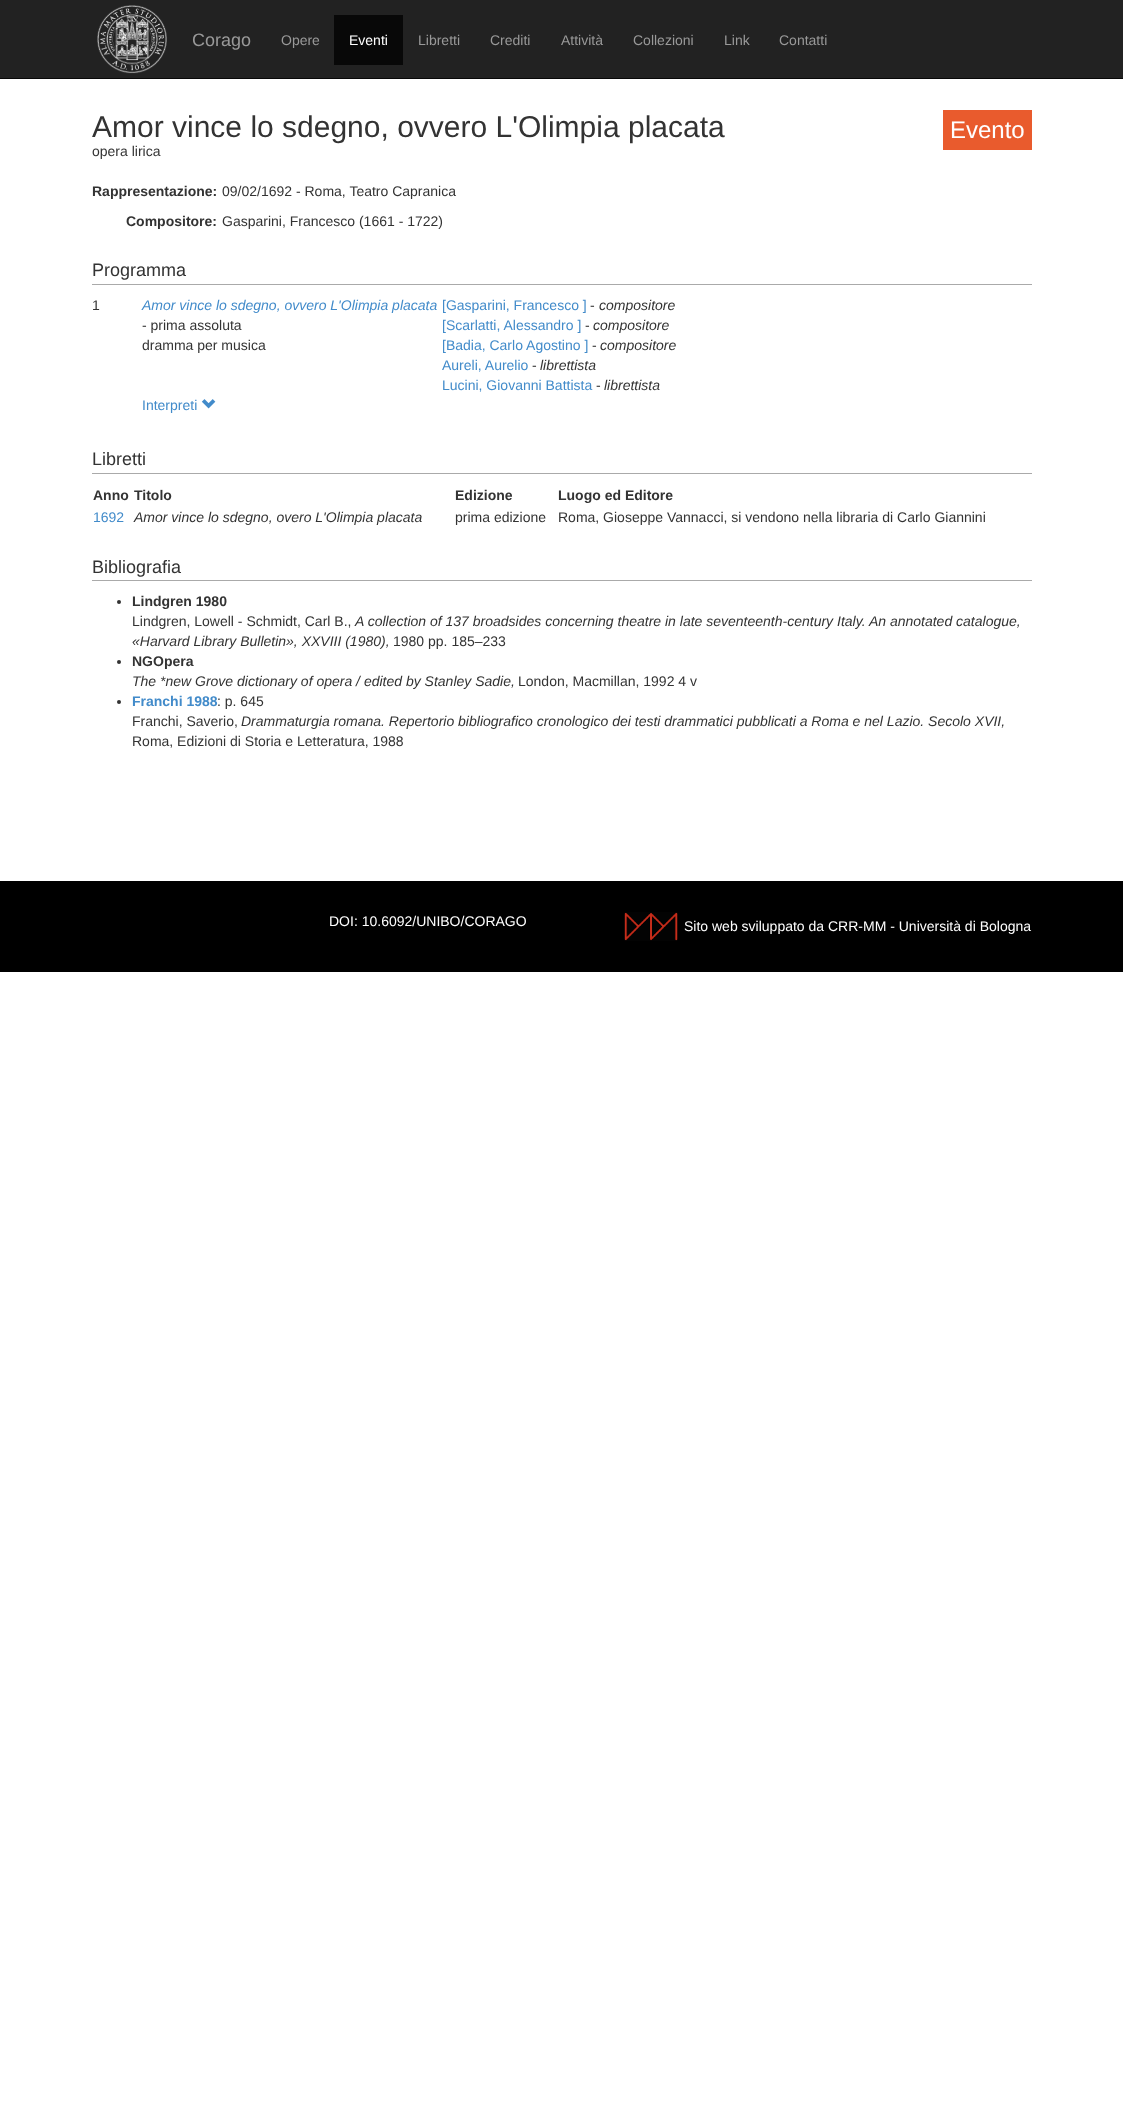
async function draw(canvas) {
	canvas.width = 1123;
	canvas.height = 2107;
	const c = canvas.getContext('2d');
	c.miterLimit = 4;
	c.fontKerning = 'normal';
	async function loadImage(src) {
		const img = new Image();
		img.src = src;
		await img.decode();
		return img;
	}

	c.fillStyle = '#fff';
	c.fillRect(0, 0, 1123, 2107);
	c.fillStyle = '#222';
	c.fillRect(0, 0, 1123, 78);
	c.fillStyle = '#080808';
	c.fillRect(0, 78, 1123, 1);
	c.drawImage(await loadImage('img1.png'), 97, 5, 70, 69);
	c.font = '18px Liberation Sans';
	c.fillStyle = '#999';
	c.fillText('Corago', 192, 46);
	c.font = '14px Liberation Sans';
	c.fillText('Opere', 281, 45);
	c.fillStyle = '#080808';
	c.fillRect(334, 15, 69, 50);
	c.fillStyle = '#fff';
	c.fillText('Eventi', 349, 45);
	c.fillStyle = '#999';
	for (const [text, x, y] of [
		['Libretti', 418, 45],
		['Crediti', 490, 45],
		['Attività', 561, 45],
		['Collezioni', 633, 45],
		['Link', 724, 45],
		['Contatti', 779, 45],
	]) {
		c.fillText(text, x, y);
	}
	c.font = '30px Liberation Sans';
	c.fillStyle = '#333';
	c.fillText('Amor vince lo sdegno, ovvero L\'Olimpia placata', 92, 137);
	c.fillStyle = '#e95b2d';
	c.fillRect(943, 110, 89, 40);
	c.font = '24px Liberation Sans';
	c.fillStyle = '#fff';
	c.fillText('Evento', 950, 138);
	c.font = '14px Liberation Sans';
	c.fillStyle = '#333';
	c.fillText('opera lirica', 92, 156);
	c.font = 'bold 14px Liberation Sans';
	c.fillText('Rappresentazione:', 92, 196);
	c.font = '14px Liberation Sans';
	c.fillText('09/02/1692 - Roma, Teatro Capranica', 222, 196);
	c.font = 'bold 14px Liberation Sans';
	c.fillText('Compositore:', 126, 226);
	c.font = '14px Liberation Sans';
	c.fillText('Gasparini, Francesco (1661 - 1722)', 222, 226);
	c.fillStyle = '#aaa';
	c.fillRect(92, 284, 940, 1);
	c.font = '18px Liberation Sans';
	c.fillStyle = '#333';
	c.fillText('Programma', 92, 276);
	c.font = '14px Liberation Sans';
	c.fillText('1', 92, 310);
	c.font = 'italic 14px Liberation Sans';
	c.fillStyle = '#428bca';
	c.fillText('Amor vince lo sdegno, ovvero L\'Olimpia placata', 142, 310);
	c.font = '14px Liberation Sans';
	c.fillStyle = '#333';
	c.fillText('- prima assoluta', 142, 330);
	c.fillText('dramma per musica', 142, 350);
	c.fillStyle = '#428bca';
	c.fillText('[Gasparini, Francesco ]', 442, 310);
	c.fillStyle = '#333';
	c.fillText('-', 590, 310);
	c.font = 'italic 14px Liberation Sans';
	c.fillText('compositore', 599, 310);
	c.font = '14px Liberation Sans';
	c.fillStyle = '#428bca';
	c.fillText('[Scarlatti, Alessandro ]', 442, 330);
	c.fillStyle = '#333';
	c.fillText('-', 585, 330);
	c.font = 'italic 14px Liberation Sans';
	c.fillText('compositore', 593, 330);
	c.font = '14px Liberation Sans';
	c.fillStyle = '#428bca';
	c.fillText('[Badia, Carlo Agostino ]', 442, 350);
	c.fillStyle = '#333';
	c.fillText('-', 592, 350);
	c.font = 'italic 14px Liberation Sans';
	c.fillText('compositore', 600, 350);
	c.font = '14px Liberation Sans';
	c.fillStyle = '#428bca';
	c.fillText('Aureli, Aurelio', 442, 370);
	c.fillStyle = '#333';
	c.fillText('-', 532, 370);
	c.font = 'italic 14px Liberation Sans';
	c.fillText('librettista', 540, 370);
	c.font = '14px Liberation Sans';
	c.fillStyle = '#428bca';
	c.fillText('Lucini, Giovanni Battista', 442, 390);
	c.fillStyle = '#333';
	c.fillText('-', 596, 390);
	c.font = 'italic 14px Liberation Sans';
	c.fillText('librettista', 604, 390);
	c.font = '14px Liberation Sans';
	c.fillStyle = '#428bca';
	c.fillText('Interpreti', 142, 410);
	c.drawImage(await loadImage('img2.png'), 201, 399, 15, 10);
	c.fillStyle = '#aaa';
	c.fillRect(92, 473, 940, 1);
	c.font = '18px Liberation Sans';
	c.fillStyle = '#333';
	c.fillText('Libretti', 92, 465);
	c.font = 'bold 14px Liberation Sans';
	for (const [text, x, y] of [
		['Anno', 93, 500],
		['Titolo', 134, 500],
		['Edizione', 455, 500],
		['Luogo ed Editore', 558, 500],
	]) {
		c.fillText(text, x, y);
	}
	c.font = '14px Liberation Sans';
	c.fillStyle = '#428bca';
	c.fillText('1692', 93, 522);
	c.font = 'italic 14px Liberation Sans';
	c.fillStyle = '#333';
	c.fillText('Amor vince lo sdegno, overo L\'Olimpia placata', 134, 522);
	c.font = '14px Liberation Sans';
	c.fillText('prima edizione', 455, 522);
	c.fillText('Roma, Gioseppe Vannacci, si vendono nella libraria di Carlo Giannini', 558, 522);
	c.fillStyle = '#aaa';
	c.fillRect(92, 580, 940, 1);
	c.font = '18px Liberation Sans';
	c.fillStyle = '#333';
	c.fillText('Bibliografia', 92, 573);
	c.beginPath();
	c.arc(119, 602, 2, 0, 2 * Math.PI);
	c.fill();
	c.font = 'bold 14px Liberation Sans';
	c.fillText('Lindgren 1980', 132, 606);
	c.font = '14px Liberation Sans';
	c.fillText('Lindgren, Lowell - Schmidt, Carl B.,', 132, 626);
	c.font = 'italic 14px Liberation Sans';
	c.fillText('A collection of 137 broadsides concerning theatre in late seventeenth-century Italy. An annotated catalogue,', 355, 626);
	c.fillText('«Harvard Library Bulletin», XXVIII (1980),', 132, 646);
	c.font = '14px Liberation Sans';
	c.fillText('1980 pp. 185–233', 393, 646);
	c.beginPath();
	c.arc(119, 662, 2, 0, 2 * Math.PI);
	c.fill();
	c.font = 'bold 14px Liberation Sans';
	c.fillText('NGOpera', 132, 666);
	c.font = 'italic 14px Liberation Sans';
	c.fillText('The *new Grove dictionary of opera / edited by Stanley Sadie,', 132, 686);
	c.font = '14px Liberation Sans';
	c.fillText('London, Macmillan, 1992 4 v', 518, 686);
	c.beginPath();
	c.arc(119, 702, 2, 0, 2 * Math.PI);
	c.fill();
	c.font = 'bold 14px Liberation Sans';
	c.fillStyle = '#428bca';
	c.fillText('Franchi 1988', 132, 706);
	c.font = '14px Liberation Sans';
	c.fillStyle = '#333';
	c.fillText(': p. 645', 217, 706);
	c.fillText('Franchi, Saverio,', 132, 726);
	c.font = 'italic 14px Liberation Sans';
	c.fillText('Drammaturgia romana. Repertorio bibliografico cronologico dei testi drammatici pubblicati a Roma e nel Lazio. Secolo XVII,', 241, 726);
	c.font = '14px Liberation Sans';
	c.fillText('Roma, Edizioni di Storia e Letteratura, 1988', 132, 746);
	c.fillStyle = '#000';
	c.fillRect(0, 881, 1123, 91);
	c.fillStyle = '#fff';
	c.fillText('DOI: 10.6092/UNIBO/CORAGO', 329, 926);
	c.drawImage(await loadImage('img3.png'), 624, 912, 54, 29);
	c.fillText('Sito web sviluppato da CRR-MM - Università di Bologna', 684, 931);
}

draw(document.querySelector('canvas'));
